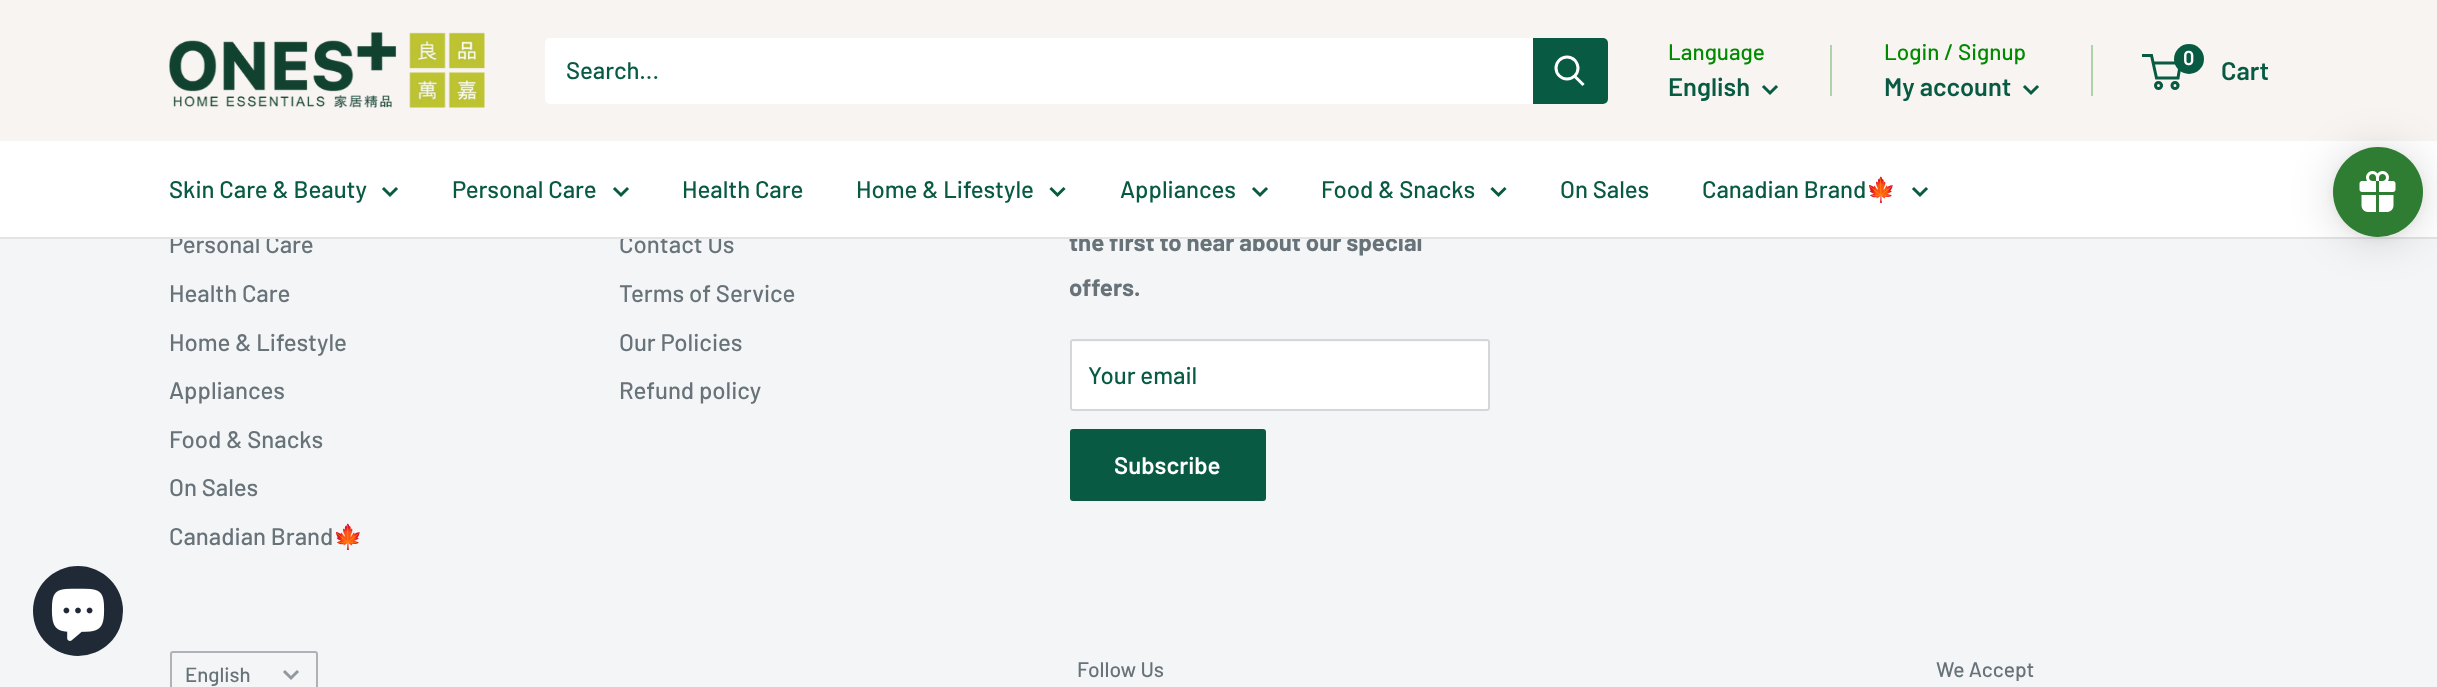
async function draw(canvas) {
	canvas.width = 2437;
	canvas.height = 687;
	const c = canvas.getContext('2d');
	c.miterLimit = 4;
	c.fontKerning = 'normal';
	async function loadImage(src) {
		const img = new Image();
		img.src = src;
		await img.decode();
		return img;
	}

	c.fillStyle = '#f3f5f6';
	c.fillRect(0, 0, 2437, 687);
	c.fillStyle = '#f7f4f2';
	c.fillRect(0, 0, 2437, 141);
	c.drawImage(await loadImage('img1.png'), 169, 32, 316, 76);
	c.fillStyle = '#fff';
	c.beginPath();
	c.roundRect(545, 38, 1063, 66, 5);
	c.fill();
	c.font = '500 24px Barlow';
	c.fillStyle = '#085a42';
	c.fillText('Search...', 566, 79);
	c.beginPath();
	c.roundRect(1533, 38, 75, 66, [0, 5, 5, 0]);
	c.fill();
	c.beginPath();
	c.moveTo(1582.5, 84);
	c.lineTo(1575, 76.5);
	c.strokeStyle = '#fff';
	c.lineWidth = 3;
	c.lineCap = 'square';
	c.stroke();
	c.beginPath();
	c.arc(1567, 68, 11, 0, 2 * Math.PI);
	c.stroke();
	c.font = '500 22.5px Barlow';
	c.fillStyle = '#008a00';
	c.fillText('Language', 1668, 60);
	c.font = '600 25.5px Barlow';
	c.fillStyle = '#085a42';
	c.fillText('English', 1668, 96);
	c.beginPath();
	c.moveTo(1776, 87);
	c.lineTo(1770, 93);
	c.lineTo(1764, 87);
	c.strokeStyle = '#085a42';
	c.stroke();
	c.fillStyle = '#add4a9';
	c.fillRect(1830, 45, 2, 51);
	c.font = '500 22.5px Barlow';
	c.fillStyle = '#008a00';
	c.fillText('Login / Signup', 1884, 60);
	c.fillStyle = '#add4a9';
	c.fillRect(2091, 45, 2, 51);
	c.font = '600 25.5px Barlow';
	c.fillStyle = '#085a42';
	c.fillText('My account', 1884, 96);
	c.beginPath();
	c.moveTo(2037, 87);
	c.lineTo(2031, 93);
	c.lineTo(2025, 87);
	c.stroke();
	c.beginPath();
	c.arc(2158.5, 85.5, 3, 0, 2 * Math.PI);
	c.stroke();
	c.beginPath();
	c.arc(2175, 85.5, 3, 0, 2 * Math.PI);
	c.stroke();
	c.beginPath();
	c.moveTo(2153, 63);
	c.lineTo(2180.5, 63);
	c.lineTo(2178, 78);
	c.lineTo(2156.5, 78);
	c.lineTo(2151.5, 55.5);
	c.lineTo(2142, 55.5);
	c.lineCap = 'butt';
	c.stroke();
	c.beginPath();
	c.arc(2189, 59, 15, 0, 2 * Math.PI);
	c.fill();
	c.font = '600 20px Barlow';
	c.fillStyle = '#fff';
	c.fillText('0', 2183, 65);
	c.font = '600 25.5px Barlow';
	c.fillStyle = '#085a42';
	c.fillText('Cart', 2221, 80);
	c.font = '500 24px Barlow';
	c.fillStyle = '#677279';
	c.fillText('Personal Care', 169, 253);
	c.fillText('Contact Us', 619, 253);
	c.font = 'bold 24px Barlow';
	c.fillText('the first to hear about our special', 1069, 251);
	c.fillStyle = '#fff';
	c.fillRect(0, 141, 2437, 96);
	c.fillStyle = '#e1e3e4';
	c.fillRect(0, 237, 2437, 2);
	c.font = '500 24px Barlow';
	c.fillStyle = '#085a42';
	c.fillText('Skin Care & Beauty', 169, 198);
	c.beginPath();
	c.moveTo(396, 189);
	c.lineTo(390, 195);
	c.lineTo(384, 189);
	c.lineCap = 'square';
	c.stroke();
	c.fillText('Personal Care', 452, 198);
	c.beginPath();
	c.moveTo(627, 189);
	c.lineTo(621, 195);
	c.lineTo(615, 189);
	c.stroke();
	c.fillText('Health Care', 682, 198);
	c.fillText('Home & Lifestyle', 856, 198);
	c.beginPath();
	c.moveTo(1063.5, 189);
	c.lineTo(1057.5, 195);
	c.lineTo(1051.5, 189);
	c.stroke();
	c.fillText('Appliances', 1120, 198);
	c.beginPath();
	c.moveTo(1266, 189);
	c.lineTo(1260, 195);
	c.lineTo(1254, 189);
	c.stroke();
	c.fillText('Food & Snacks', 1321, 198);
	c.beginPath();
	c.moveTo(1504.5, 189);
	c.lineTo(1498.5, 195);
	c.lineTo(1492.5, 189);
	c.stroke();
	c.fillText('On Sales', 1560, 198);
	c.fillText('Canadian Brand', 1702, 198);
	c.font = '24px Noto Color Emoji';
	c.fillText('🍁', 1866, 198);
	c.beginPath();
	c.moveTo(1926, 189);
	c.lineTo(1920, 195);
	c.lineTo(1914, 189);
	c.stroke();
	c.fillStyle = '#00000026';
	c.filter = 'blur(22.5px)';
	c.beginPath();
	c.roundRect(2333, 150, 90, 90, 45);
	c.fill();
	c.filter = 'none';
	c.fillStyle = '#0000000d';
	c.filter = 'blur(4.5px)';
	c.beginPath();
	c.roundRect(2333, 149, 90, 90, 45);
	c.fill();
	c.filter = 'none';
	c.fillStyle = '#2e7d32';
	c.beginPath();
	c.arc(2378, 192, 45, 0, 2 * Math.PI);
	c.fill();
	c.drawImage(await loadImage('img2.png'), 2359, 171, 37, 41);
	c.fillStyle = '#202a36';
	c.beginPath();
	c.arc(78, 611, 45, 0, 2 * Math.PI);
	c.fill();
	c.drawImage(await loadImage('img3.png'), 51, 588, 54, 53);
	c.font = '500 24px Barlow';
	c.fillStyle = '#677279';
	for (const [text, x, y] of [
		['Health Care', 169, 302],
		['Home & Lifestyle', 169, 351],
		['Appliances', 169, 399],
		['Food & Snacks', 169, 448],
		['On Sales', 169, 496],
		['Canadian Brand', 169, 545],
	]) {
		c.fillText(text, x, y);
	}
	c.font = '24px Noto Color Emoji';
	c.fillText('🍁', 333, 545);
	c.font = '500 24px Barlow';
	for (const [text, x, y] of [
		['Terms of Service', 619, 302],
		['Our Policies', 619, 351],
		['Refund policy', 619, 399],
	]) {
		c.fillText(text, x, y);
	}
	c.font = 'bold 24px Barlow';
	c.fillText('offers.', 1069, 296);
	c.fillStyle = '#fff';
	c.beginPath();
	c.roundRect(1070, 339, 420, 72, 3);
	c.fill();
	c.fillStyle = '#f8f8f8';
	c.beginPath();
	c.moveTo(1072, 342);
	c.lineTo(1486, 342);
	c.bezierCurveTo(1487, 342, 1488, 343, 1488, 344);
	c.bezierCurveTo(1488, 343, 1488, 341, 1486, 341);
	c.lineTo(1072, 341);
	c.lineTo(1071, 342);
	c.lineTo(1071, 344);
	c.closePath();
	c.fill();
	c.beginPath();
	c.roundRect(1071, 340, 418, 70, 2);
	c.strokeStyle = '#d4d6d8';
	c.lineWidth = 2;
	c.stroke();
	c.font = '500 24px Barlow';
	c.fillStyle = '#085a42';
	c.fillText('Your email', 1088, 384);
	c.beginPath();
	c.roundRect(1070, 429, 196, 72, 3);
	c.fill();
	c.font = '600 24px Barlow';
	c.fillStyle = '#fff';
	c.fillText('Subscribe', 1114, 474);
	c.fillStyle = '#eef0f1';
	c.beginPath();
	c.moveTo(171, 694);
	c.lineTo(171, 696);
	c.bezierCurveTo(171, 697, 172, 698, 172, 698);
	c.lineTo(316, 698);
	c.bezierCurveTo(316, 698, 317, 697, 317, 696);
	c.lineTo(317, 654);
	c.bezierCurveTo(317, 654, 317, 653, 316, 653);
	c.lineTo(316, 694);
	c.bezierCurveTo(316, 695, 316, 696, 315, 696);
	c.lineTo(172, 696);
	c.closePath();
	c.fill();
	c.beginPath();
	c.roundRect(171, 652, 146, 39, 2);
	c.strokeStyle = '#67727980';
	c.stroke();
	c.font = '500 20.5px Barlow';
	c.fillStyle = '#677279';
	c.fillText('English', 185, 682);
	c.beginPath();
	c.moveTo(297, 672);
	c.lineTo(291, 678);
	c.lineTo(285, 672);
	c.strokeStyle = '#91999f';
	c.lineWidth = 3;
	c.stroke();
	c.font = '500 21px Barlow';
	c.fillText('Follow Us', 1077, 677);
	c.fillText('We Accept', 1936, 677);
}

draw(document.querySelector('canvas'));
